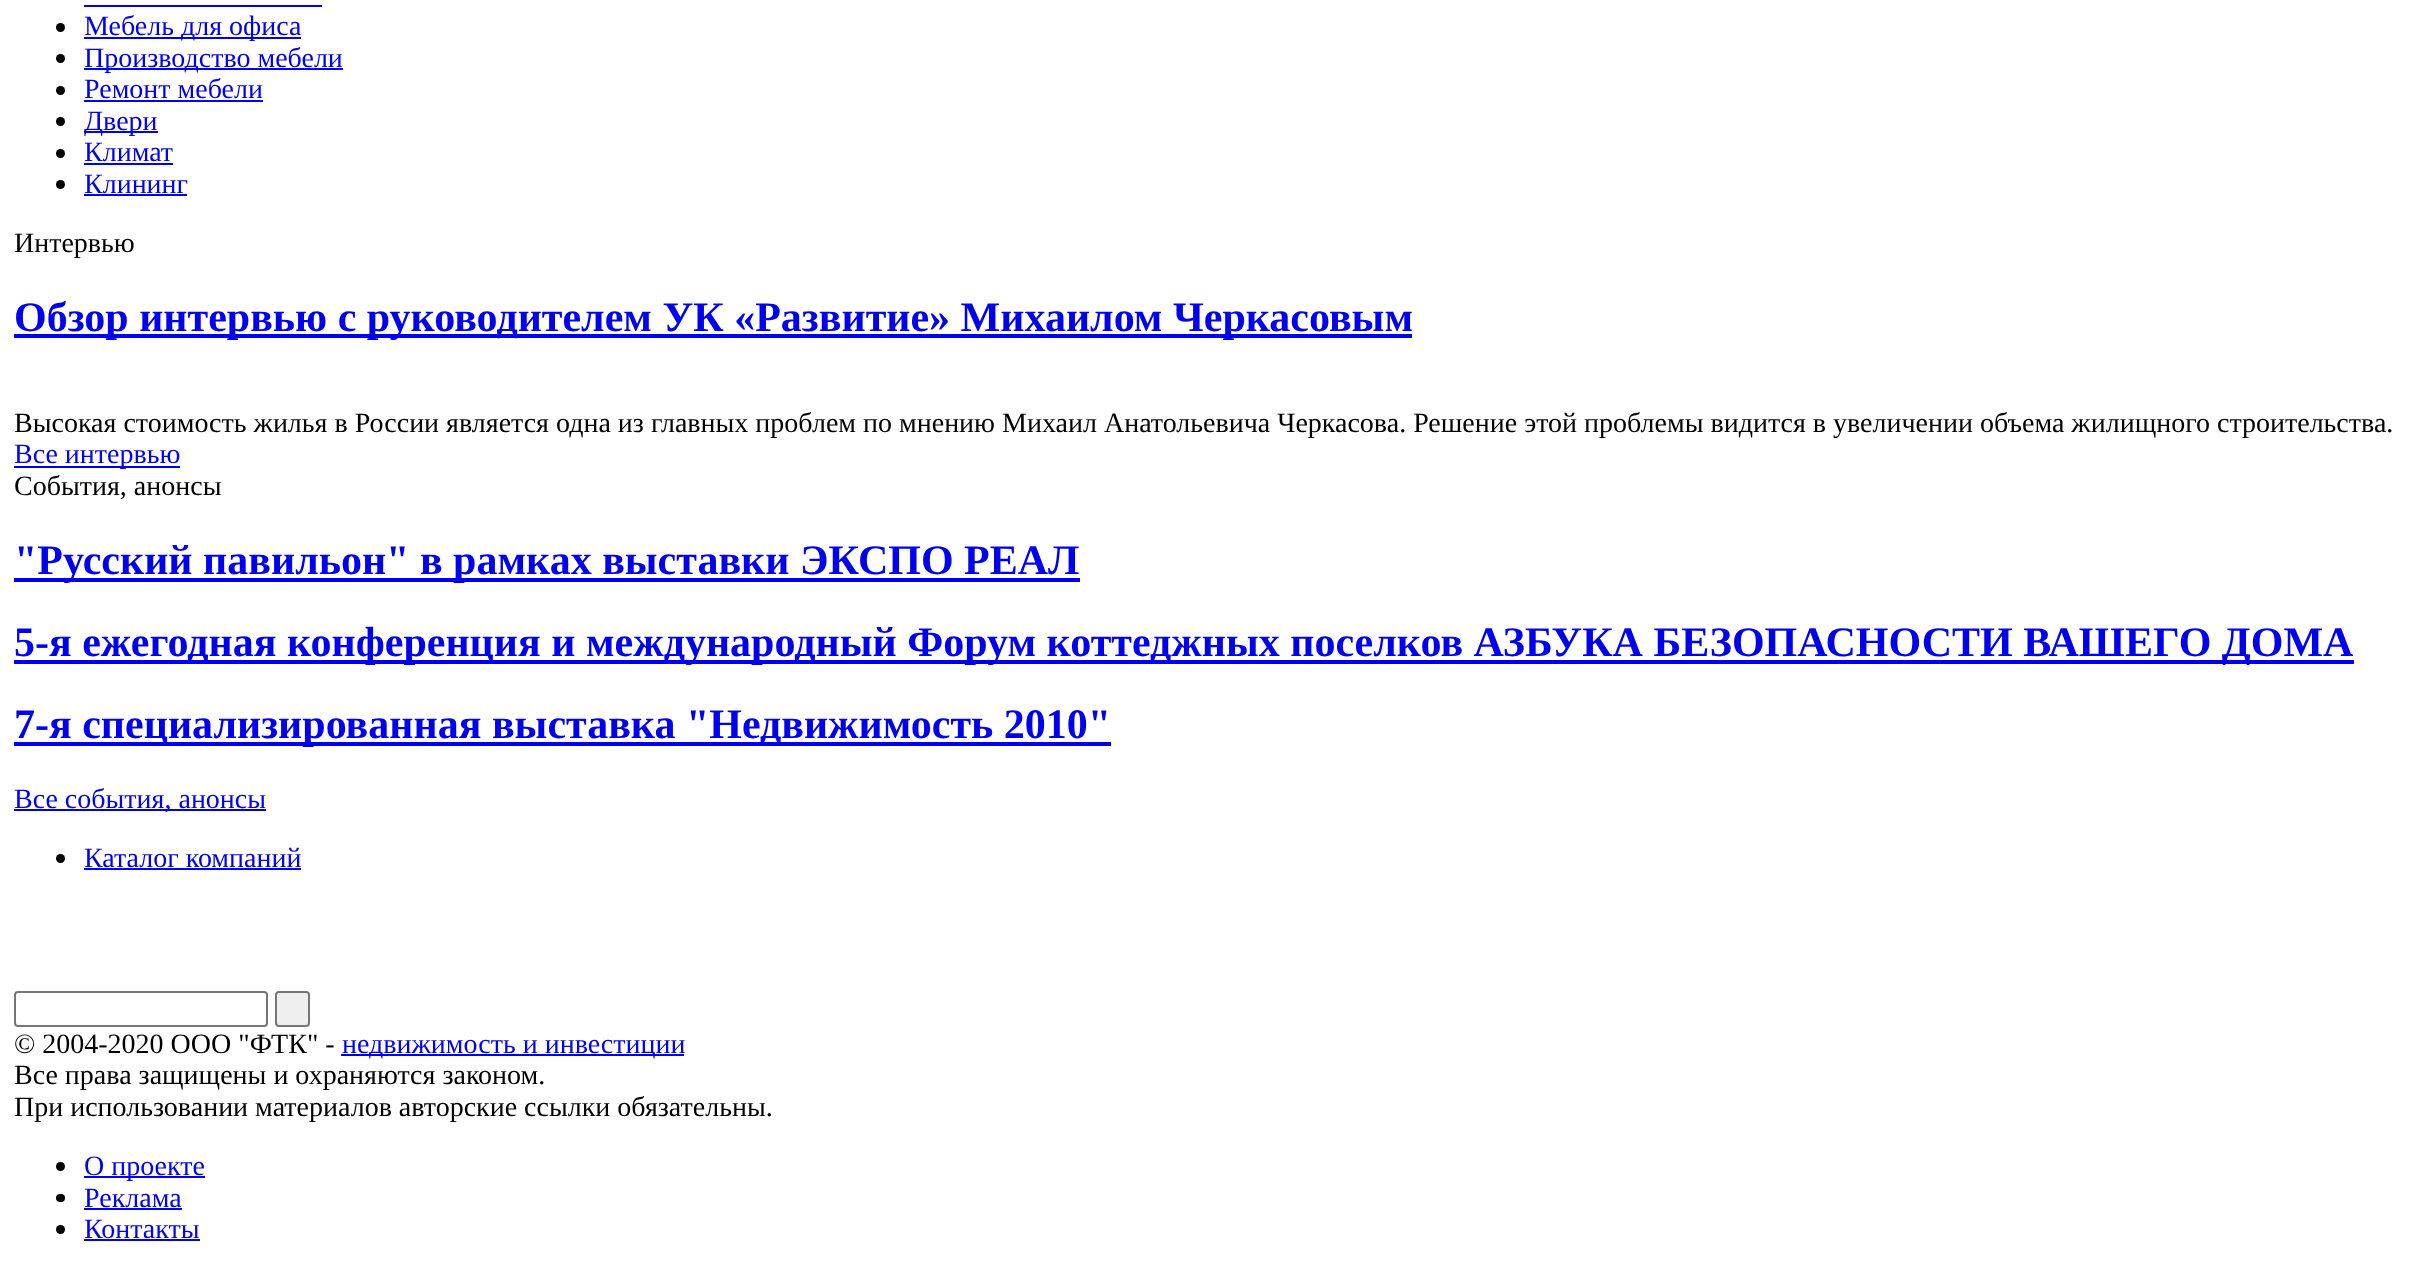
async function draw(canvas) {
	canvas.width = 2414;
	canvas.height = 1272;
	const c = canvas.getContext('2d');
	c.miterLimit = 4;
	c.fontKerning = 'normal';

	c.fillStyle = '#fff';
	c.fillRect(0, 0, 2414, 1272);
	c.fillStyle = '#00e';
	c.fillRect(84, 5, 238, 2);
	c.fillStyle = '#000';
	c.beginPath();
	c.arc(60.5, 27.5, 4.5, 0, 2 * Math.PI);
	c.fill();
	c.fillStyle = '#00e';
	c.fillRect(84, 37, 217, 2);
	c.font = '28px Liberation Serif';
	c.fillText('Мебель для офиса', 84, 35);
	c.fillStyle = '#000';
	c.beginPath();
	c.arc(60.5, 58.5, 4.5, 0, 2 * Math.PI);
	c.fill();
	c.fillStyle = '#00e';
	c.fillRect(84, 68, 259, 2);
	c.fillText('Производство мебели', 84, 67);
	c.fillStyle = '#000';
	c.beginPath();
	c.arc(60.5, 90.5, 4.5, 0, 2 * Math.PI);
	c.fill();
	c.fillStyle = '#00e';
	c.fillText('Ремонт мебели', 84, 98);
	c.fillRect(84, 100, 179, 2);
	c.fillStyle = '#000';
	c.beginPath();
	c.arc(60.5, 121.5, 4.5, 0, 2 * Math.PI);
	c.fill();
	c.fillStyle = '#00e';
	c.fillRect(84, 131, 74, 2);
	c.fillText('Двери', 84, 130);
	c.fillStyle = '#000';
	c.beginPath();
	c.arc(60.5, 153.5, 4.5, 0, 2 * Math.PI);
	c.fill();
	c.fillStyle = '#00e';
	c.fillText('Климат', 84, 161);
	c.fillRect(84, 163, 89, 2);
	c.fillStyle = '#000';
	c.beginPath();
	c.arc(60.5, 184.5, 4.5, 0, 2 * Math.PI);
	c.fill();
	c.fillStyle = '#00e';
	c.fillText('Клининг', 84, 193);
	c.fillRect(84, 194, 103, 2);
	c.fillStyle = '#000';
	c.fillText('Интервью', 14, 252);
	c.fillStyle = '#00e';
	c.fillRect(14, 334, 1398, 4);
	c.font = 'bold 42px Liberation Serif';
	c.fillText('Обзор интервью с руководителем УК «Развитие» Михаилом Черкасовым', 14, 331);
	c.font = '28px Liberation Serif';
	c.fillStyle = '#000';
	c.fillText('Высокая стоимость жилья в России является одна из главных проблем по мнению Михаил Анатольевича Черкасова. Решение этой проблемы видится в увеличении объема жилищного строительства.', 14, 432);
	c.fillStyle = '#00e';
	c.fillRect(14, 466, 166, 2);
	c.fillText('Все интервью', 14, 463);
	c.fillStyle = '#000';
	c.fillText('События, анонсы', 14, 495);
	c.fillStyle = '#00e';
	c.fillRect(14, 578, 1066, 4);
	c.font = 'bold 42px Liberation Serif';
	c.fillText('"Русский павильон" в рамках выставки ЭКСПО РЕАЛ', 14, 574);
	c.fillRect(14, 660, 2340, 4);
	c.fillText('5-я ежегодная конференция и международный Форум коттеджных поселков АЗБУКА БЕЗОПАСНОСТИ ВАШЕГО ДОМА', 14, 656);
	c.fillRect(14, 742, 1097, 4);
	c.fillText('7-я специализированная выставка "Недвижимость 2010"', 14, 738);
	c.fillRect(14, 809, 252, 2);
	c.font = '28px Liberation Serif';
	c.fillText('Все события, анонсы', 14, 808);
	c.fillStyle = '#000';
	c.beginPath();
	c.arc(60.5, 858.5, 4.5, 0, 2 * Math.PI);
	c.fill();
	c.fillStyle = '#00e';
	c.fillText('Каталог компаний', 84, 867);
	c.fillRect(84, 868, 217, 2);
	c.beginPath();
	c.roundRect(15, 992, 252, 34, 3);
	c.strokeStyle = '#767676';
	c.lineWidth = 2;
	c.stroke();
	c.fillStyle = '#efefef';
	c.beginPath();
	c.roundRect(276, 992, 33, 34, 3);
	c.fill();
	c.stroke();
	c.fillStyle = '#000';
	c.fillText('© 2004-2020 ООО "ФТК" -', 14, 1053);
	c.fillStyle = '#00e';
	c.fillRect(341, 1054, 343, 2);
	c.fillText('недвижимость и инвестиции', 342, 1053);
	c.fillStyle = '#000';
	c.fillText('Все права защищены и охраняются законом.', 14, 1084);
	c.fillText('При использовании материалов авторские ссылки обязательны.', 14, 1116);
	c.beginPath();
	c.arc(60.5, 1166.5, 4.5, 0, 2 * Math.PI);
	c.fill();
	c.fillStyle = '#00e';
	c.fillRect(84, 1176, 121, 2);
	c.fillText('О проекте', 84, 1175);
	c.fillStyle = '#000';
	c.beginPath();
	c.roundRect(56, 1194, 9, 8, 4);
	c.fill();
	c.fillStyle = '#00e';
	c.fillText('Реклама', 84, 1207);
	c.fillRect(84, 1208, 98, 2);
	c.fillStyle = '#000';
	c.beginPath();
	c.arc(60.5, 1229.5, 4.5, 0, 2 * Math.PI);
	c.fill();
	c.fillStyle = '#00e';
	c.fillText('Контакты', 84, 1238);
	c.fillRect(84, 1239, 116, 2);
}

draw(document.querySelector('canvas'));
